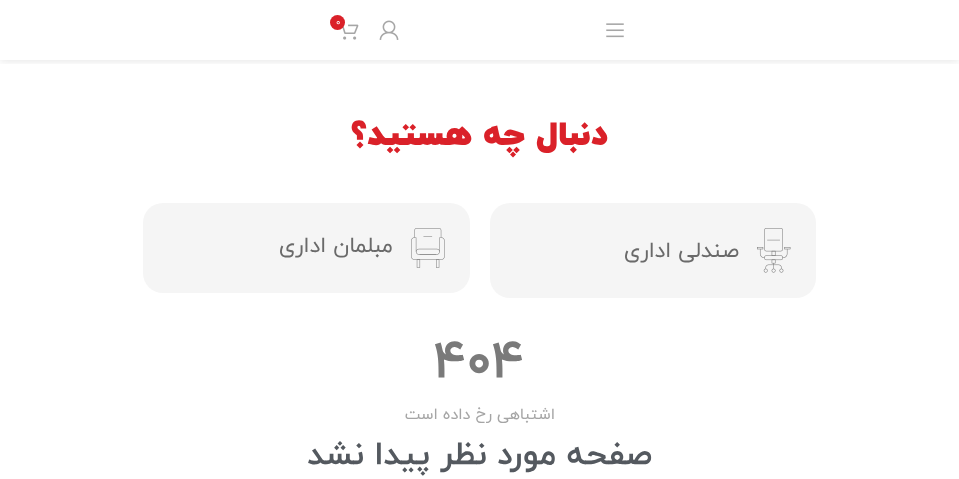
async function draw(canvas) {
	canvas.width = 959;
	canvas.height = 479;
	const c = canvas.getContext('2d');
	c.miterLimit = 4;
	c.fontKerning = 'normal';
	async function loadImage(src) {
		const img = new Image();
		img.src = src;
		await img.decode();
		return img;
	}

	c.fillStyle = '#fff';
	c.fillRect(0, 0, 959, 479);
	c.save();
	c.beginPath();
	c.rect(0, 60, 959, 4);
	c.clip();
	c.fillStyle = '#0000001a';
	c.filter = 'blur(4px)';
	c.beginPath();
	c.rect(0, 1, 959, 60);
	c.fill();
	c.filter = 'none';
	c.restore();
	c.drawImage(await loadImage('img1.png'), 606, 23, 18, 15);
	c.drawImage(await loadImage('img2.png'), 379, 20, 20, 20);
	c.drawImage(await loadImage('img3.png'), 342, 24, 17, 16);
	c.fillStyle = '#da2129';
	c.beginPath();
	c.arc(337.5, 22.5, 7.5, 0, 2 * Math.PI);
	c.fill();
	c.font = '9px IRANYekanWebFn';
	c.fillStyle = '#fff';
	c.fillText('0', 336, 25);
	c.direction = 'rtl';
	c.font = '900 33px IRANYekanWebFn';
	c.fillStyle = '#da2129';
	c.fillText('دنبال چه هستید؟', 608, 144);
	c.fillStyle = '#f5f5f5';
	c.beginPath();
	c.roundRect(490, 203, 326, 95, 20);
	c.fill();
	c.drawImage(await loadImage('img4.png'), 757, 228, 34, 45);
	c.font = '22px IRANYekanWebFn';
	c.fillStyle = '#6a6a6a';
	c.fillText('صندلی اداری', 739, 257);
	c.fillStyle = '#f5f5f5';
	c.beginPath();
	c.roundRect(143, 203, 327, 90, 20);
	c.fill();
	c.drawImage(await loadImage('img5.png'), 411, 228, 34, 40);
	c.fillStyle = '#6a6a6a';
	c.fillText('مبلمان اداری', 393, 252);
	c.direction = 'ltr';
	c.font = 'bold 52px IRANYekanWebFn';
	c.fillStyle = '#7a7a7a';
	c.fillText('404', 434, 377);
	c.direction = 'rtl';
	c.font = '16px IRANYekanWebFn';
	c.fillStyle = '#a5a5a5';
	c.fillText('اشتباهی رخ داده است', 555, 419);
	c.font = 'bold 33px IRANYekanWebFn';
	c.fillStyle = '#54595f';
	c.fillText('صفحه مورد نظر پیدا نشد', 652, 464);
}

draw(document.querySelector('canvas'));
